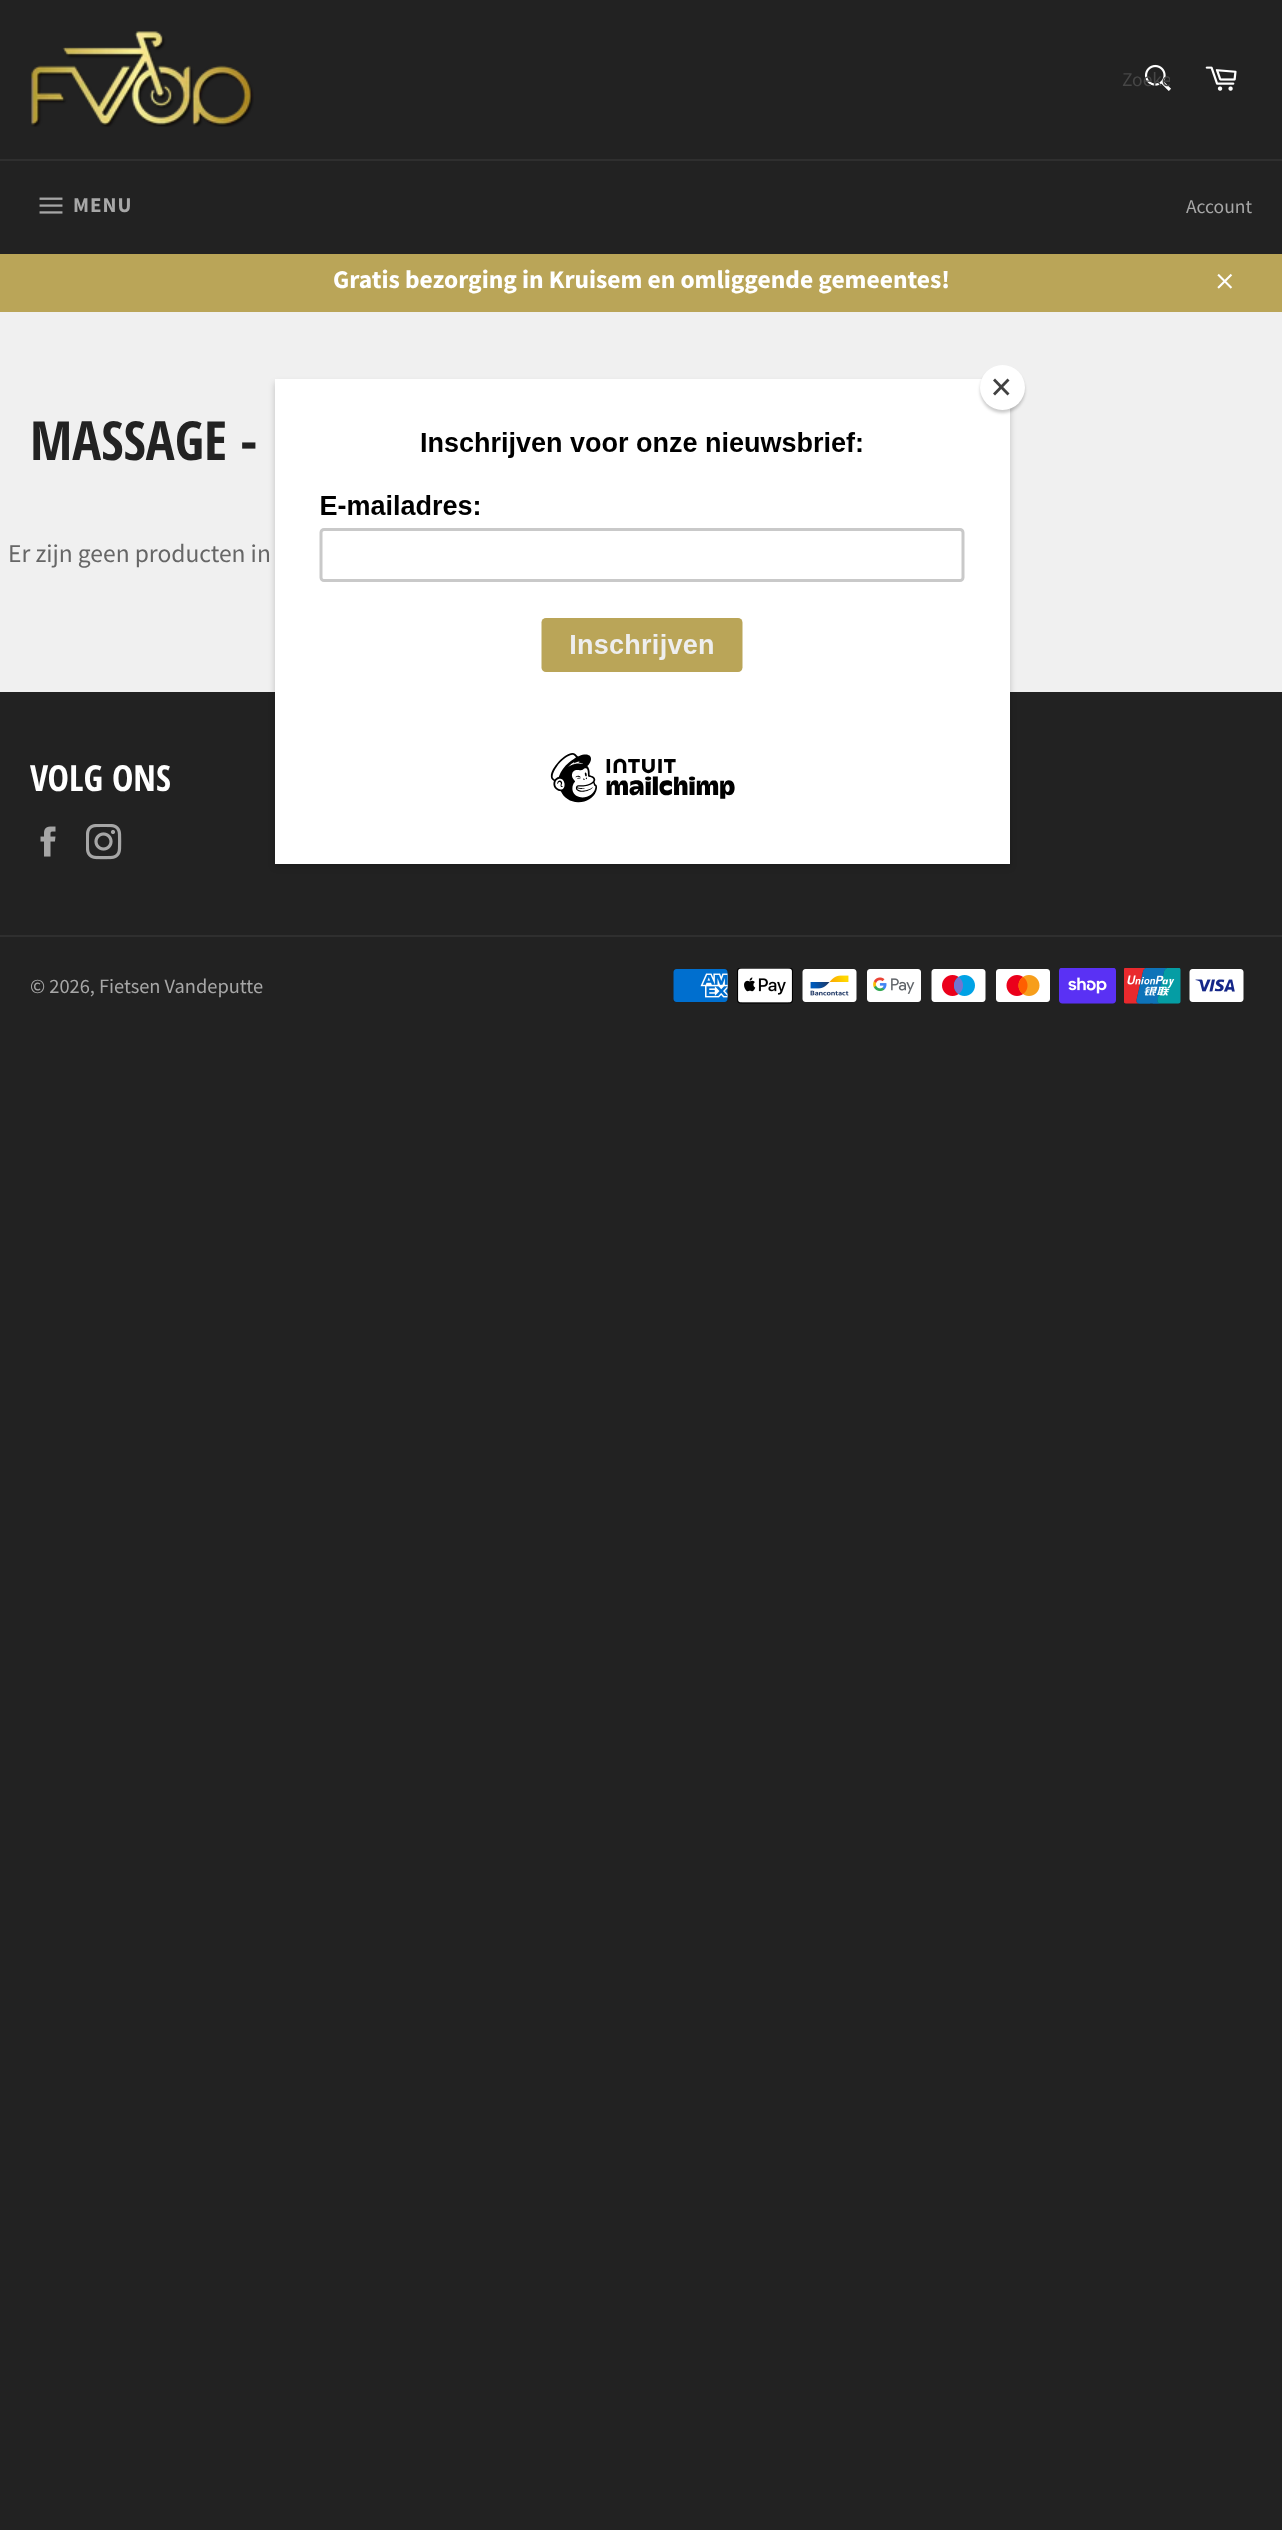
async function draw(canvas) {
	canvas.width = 1282;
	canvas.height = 2530;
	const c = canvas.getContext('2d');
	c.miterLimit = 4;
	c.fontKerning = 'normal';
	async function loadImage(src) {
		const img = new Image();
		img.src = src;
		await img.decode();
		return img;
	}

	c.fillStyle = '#222';
	c.fillRect(0, 0, 1282, 2530);
	c.fillStyle = '#f0f0f0';
	c.fillRect(0, 312, 1282, 380);
	c.drawImage(await loadImage('img1.png'), 31, 31, 223, 96);
	c.drawImage(await loadImage('img2.png'), 1144, 64, 27, 27);
	c.save();
	c.beginPath();
	c.rect(1122, 68, 48, 25);
	c.clip();
	c.font = '19.5px Source Sans Pro';
	c.fillStyle = '#464646';
	c.fillText('Zoeke', 1122, 86);
	c.restore();
	c.drawImage(await loadImage('img3.png'), 1205, 66, 32, 25);
	c.fillStyle = '#2f2f2f';
	c.fillRect(0, 159, 1282, 2);
	c.drawImage(await loadImage('img4.png'), 39, 197, 24, 17);
	c.letterSpacing = '1px';
	c.font = 'bold 21px Source Sans Pro';
	c.fillStyle = '#a7a7a7';
	c.fillText('MENU', 73, 212);
	c.letterSpacing = '0px';
	c.font = '19.5px Source Sans Pro';
	c.fillText('Account', 1186, 213);
	c.fillStyle = '#baa558';
	c.fillRect(0, 254, 1282, 58);
	c.font = 'bold 25.5px Source Sans Pro';
	c.fillStyle = '#fff';
	c.fillText('Gratis bezorging in Kruisem en omliggende gemeentes!', 333, 288);
	c.drawImage(await loadImage('img5.png'), 1217, 273, 16, 16);
	c.font = 'bold 54px Open Sans Condensed';
	c.fillStyle = '#222';
	c.fillText('MASSAGE -', 30, 460);
	c.font = '25.5px Source Sans Pro';
	c.fillStyle = '#666';
	c.fillText('Er zijn geen producten in', 8, 562);
	c.font = 'bold 36px Open Sans Condensed';
	c.fillStyle = '#fff';
	c.fillText('VOLG ONS', 30, 791);
	c.drawImage(await loadImage('img6.png'), 40, 826, 16, 31);
	c.drawImage(await loadImage('img7.png'), 86, 824, 36, 36);
	c.fillStyle = '#2f2f2f';
	c.fillRect(0, 935, 1282, 2);
	c.font = '20.4px Source Sans Pro';
	c.fillStyle = '#a7a7a7';
	c.fillText('© 2026, Fietsen Vandeputte', 30, 993);
	c.drawImage(await loadImage('img8.png'), 673, 969, 55, 33);
	c.drawImage(await loadImage('img9.png'), 737, 968, 56, 36);
	c.drawImage(await loadImage('img10.png'), 802, 969, 55, 33);
	c.drawImage(await loadImage('img11.png'), 867, 969, 54, 33);
	c.drawImage(await loadImage('img12.png'), 931, 969, 55, 33);
	c.drawImage(await loadImage('img13.png'), 996, 969, 54, 33);
	c.drawImage(await loadImage('img14.png'), 1059, 968, 57, 36);
	c.drawImage(await loadImage('img15.png'), 1124, 968, 57, 36);
	c.drawImage(await loadImage('img16.png'), 1189, 969, 55, 33);
	c.fillStyle = '#00000033';
	c.filter = 'blur(3px)';
	c.beginPath();
	c.rect(275, 383, 735, 484);
	c.fill();
	c.filter = 'none';
	c.drawImage(await loadImage('img17.png'), 275, 379, 735, 485);
	c.filter = 'blur(1.5px)';
	c.beginPath();
	c.roundRect(980, 368, 45, 45, 22.5);
	c.fill();
	c.filter = 'none';
	c.fillStyle = '#fff';
	c.beginPath();
	c.arc(1002.5, 387.5, 22.5, 0, 2 * Math.PI);
	c.fill();
	c.fillStyle = '#414141';
	c.beginPath();
	c.moveTo(1007.5, 378.5);
	c.lineTo(1009.5, 380.5);
	c.lineTo(995, 395.5);
	c.lineTo(993, 393.5);
	c.closePath();
	c.fill();
	c.beginPath();
	c.moveTo(993, 380.5);
	c.lineTo(995, 378.5);
	c.lineTo(1009.5, 393.5);
	c.lineTo(1007.5, 395.5);
	c.closePath();
	c.fill();
}

draw(document.querySelector('canvas'));
